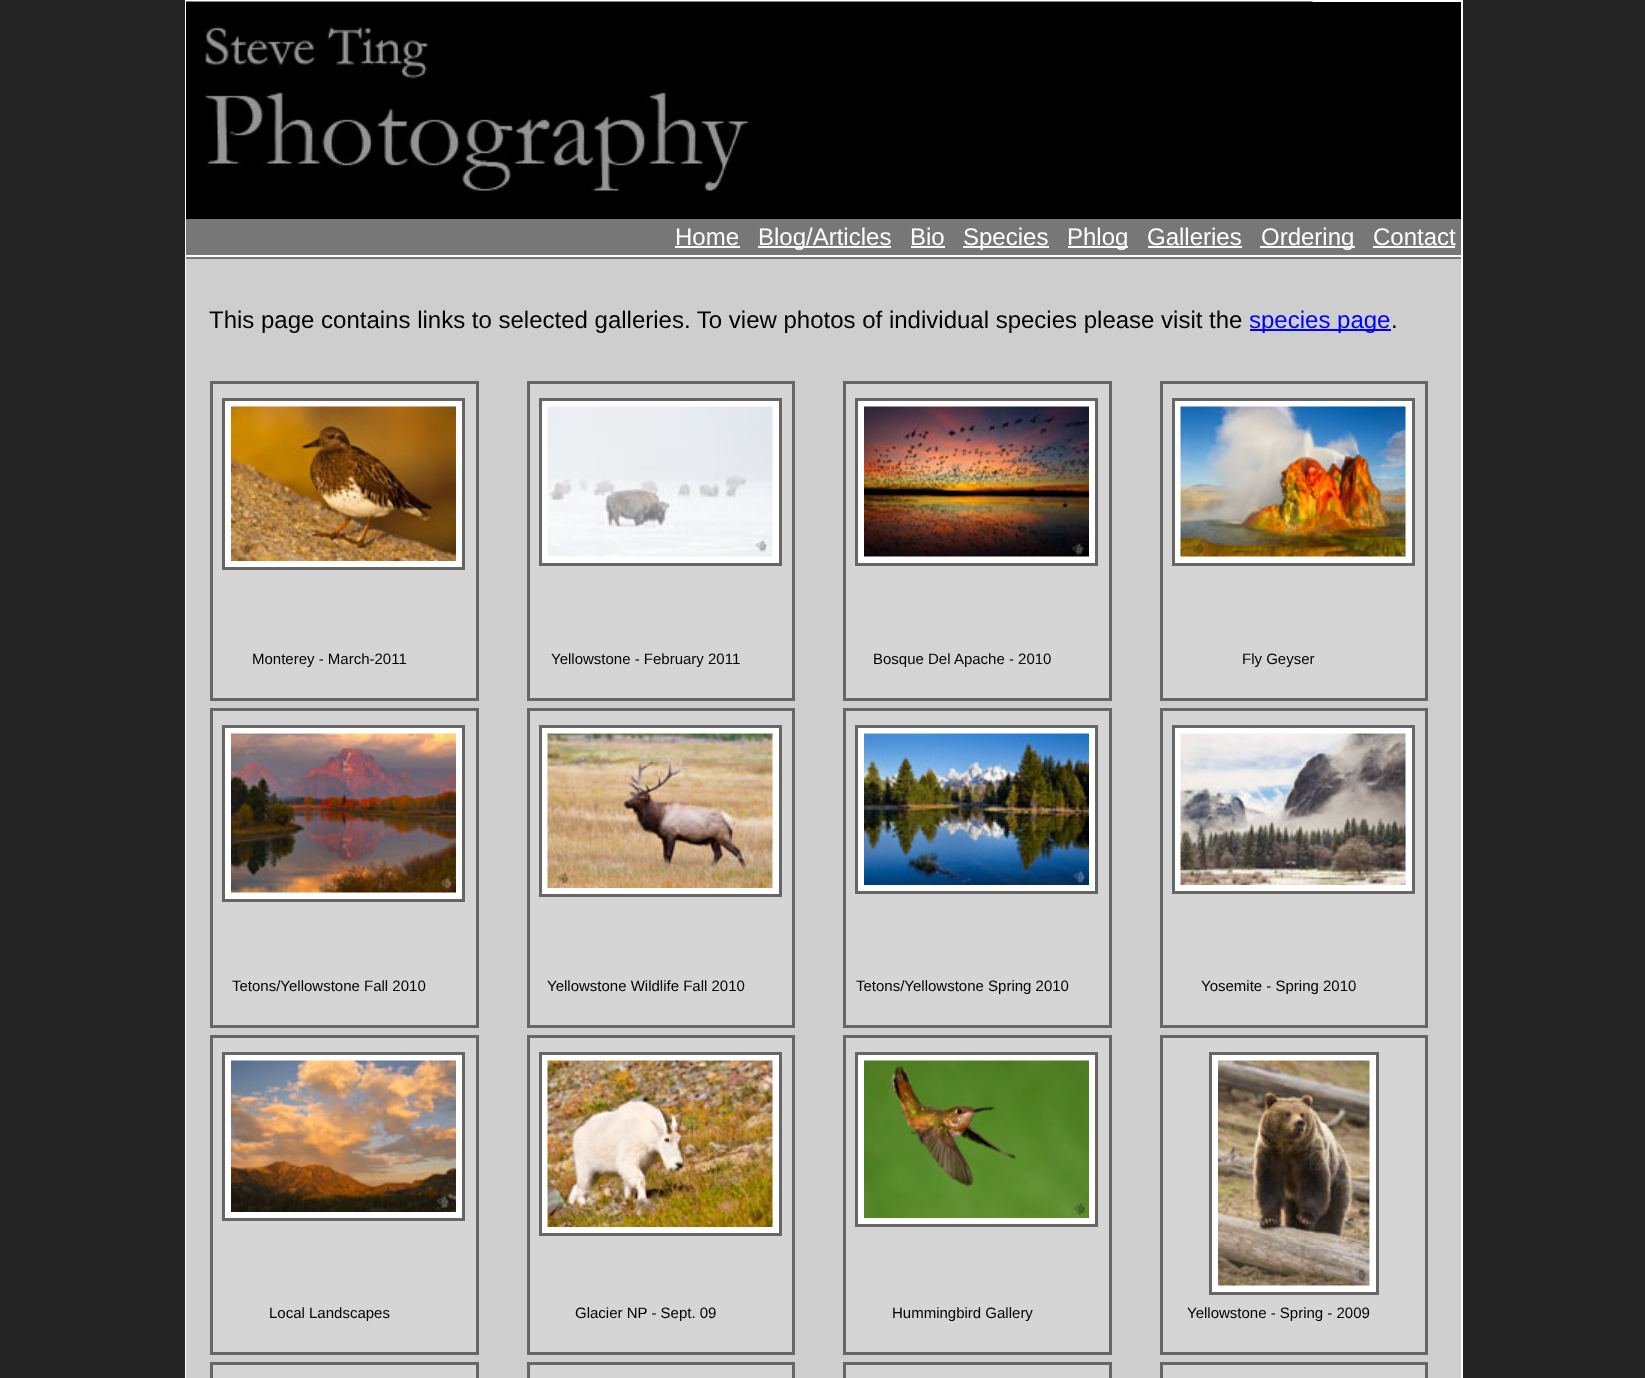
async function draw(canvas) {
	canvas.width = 1645;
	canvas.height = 1378;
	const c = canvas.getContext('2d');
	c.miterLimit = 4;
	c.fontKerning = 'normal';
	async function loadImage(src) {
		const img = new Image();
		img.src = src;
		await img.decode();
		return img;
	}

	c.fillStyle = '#252525';
	c.fillRect(0, 0, 1645, 1378);
	c.strokeStyle = '#fff';
	c.lineWidth = 2;
	c.strokeRect(186, 1, 1276, 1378);
	c.fillStyle = '#000';
	c.fillRect(186, 2, 1275, 217);
	c.drawImage(await loadImage('img1.png'), 186, 1, 1127, 192);
	c.fillStyle = '#777';
	c.fillRect(186, 219, 1275, 36);
	c.fillStyle = '#fff';
	c.fillRect(186, 255, 1275, 2);
	c.font = '24px Liberation Sans';
	c.fillText('Home', 675, 245);
	c.fillRect(675, 246, 65, 2);
	c.fillRect(758, 246, 133, 2);
	c.fillText('Blog/Articles', 758, 245);
	c.fillText('Bio', 910, 245);
	c.fillRect(911, 246, 34, 2);
	c.fillRect(963, 246, 86, 2);
	c.fillText('Species', 963, 245);
	c.fillRect(1068, 246, 60, 2);
	c.fillText('Phlog', 1067, 245);
	c.fillText('Galleries', 1147, 245);
	c.fillRect(1148, 246, 94, 2);
	c.fillRect(1260, 246, 95, 2);
	c.fillText('Ordering', 1261, 245);
	c.fillText('Contact', 1373, 245);
	for (const [x, y, w, h, color] of [
		[1373, 246, 82, 2, '#fff'],
		[186, 259, 1275, 1119, '#cecece'],
		[186, 257, 1275, 2, '#777'],
	]) {
		c.fillStyle = color;
		c.fillRect(x, y, w, h);
	}
	c.fillStyle = '#000';
	c.fillText('This page contains links to selected galleries. To view photos of individual species please visit the', 209, 328);
	c.fillStyle = '#00f';
	c.fillRect(1250, 329, 141, 2);
	c.fillText('species page', 1249, 328);
	c.fillStyle = '#000';
	c.fillText('.', 1391, 328);
	c.fillStyle = '#d5d5d5';
	c.beginPath();
	c.rect(211.5, 382.5, 266, 317);
	c.fill();
	c.strokeStyle = '#666';
	c.lineWidth = 3;
	c.stroke();
	c.fillStyle = '#fff';
	c.beginPath();
	c.rect(223.5, 399.5, 240, 169);
	c.fill();
	c.stroke();
	c.drawImage(await loadImage('img2.png'), 231, 406, 225, 155);
	c.font = '15px Liberation Sans';
	c.fillStyle = '#000';
	c.fillText('Monterey - March-2011', 252, 664);
	c.fillStyle = '#d5d5d5';
	c.beginPath();
	c.rect(528.5, 382.5, 265, 317);
	c.fill();
	c.stroke();
	c.fillStyle = '#fff';
	c.beginPath();
	c.rect(540.5, 399.5, 240, 165);
	c.fill();
	c.stroke();
	c.drawImage(await loadImage('img3.png'), 547, 406, 226, 151);
	c.fillStyle = '#000';
	c.fillText('Yellowstone - February 2011', 551, 664);
	c.fillStyle = '#d5d5d5';
	c.beginPath();
	c.rect(844.5, 382.5, 266, 317);
	c.fill();
	c.stroke();
	c.fillStyle = '#fff';
	c.beginPath();
	c.rect(856.5, 399.5, 240, 165);
	c.fill();
	c.stroke();
	c.drawImage(await loadImage('img4.png'), 864, 406, 225, 151);
	c.fillStyle = '#000';
	c.fillText('Bosque Del Apache - 2010', 873, 664);
	c.fillStyle = '#d5d5d5';
	c.beginPath();
	c.rect(1161.5, 382.5, 265, 317);
	c.fill();
	c.stroke();
	c.fillStyle = '#fff';
	c.beginPath();
	c.rect(1173.5, 399.5, 240, 165);
	c.fill();
	c.stroke();
	c.drawImage(await loadImage('img5.png'), 1180, 406, 226, 151);
	c.fillStyle = '#000';
	c.fillText('Fly Geyser', 1242, 664);
	c.fillStyle = '#d5d5d5';
	c.beginPath();
	c.rect(211.5, 709.5, 266, 317);
	c.fill();
	c.stroke();
	c.fillStyle = '#fff';
	c.beginPath();
	c.rect(223.5, 726.5, 240, 174);
	c.fill();
	c.stroke();
	c.drawImage(await loadImage('img6.png'), 231, 733, 225, 160);
	c.fillStyle = '#000';
	c.fillText('Tetons/Yellowstone Fall 2010', 232, 991);
	c.fillStyle = '#d5d5d5';
	c.beginPath();
	c.rect(528.5, 709.5, 265, 317);
	c.fill();
	c.stroke();
	c.fillStyle = '#fff';
	c.beginPath();
	c.rect(540.5, 726.5, 240, 169);
	c.fill();
	c.stroke();
	c.drawImage(await loadImage('img7.png'), 547, 733, 226, 155);
	c.fillStyle = '#000';
	c.fillText('Yellowstone Wildlife Fall 2010', 547, 991);
	c.fillStyle = '#d5d5d5';
	c.beginPath();
	c.rect(844.5, 709.5, 266, 317);
	c.fill();
	c.stroke();
	c.fillStyle = '#fff';
	c.beginPath();
	c.rect(856.5, 726.5, 240, 166);
	c.fill();
	c.stroke();
	c.drawImage(await loadImage('img8.png'), 864, 733, 225, 152);
	c.fillStyle = '#000';
	c.fillText('Tetons/Yellowstone Spring 2010', 856, 991);
	c.fillStyle = '#d5d5d5';
	c.beginPath();
	c.rect(1161.5, 709.5, 265, 317);
	c.fill();
	c.stroke();
	c.fillStyle = '#fff';
	c.beginPath();
	c.rect(1173.5, 726.5, 240, 166);
	c.fill();
	c.stroke();
	c.drawImage(await loadImage('img9.png'), 1180, 733, 226, 152);
	c.fillStyle = '#000';
	c.fillText('Yosemite - Spring 2010', 1201, 991);
	c.fillStyle = '#d5d5d5';
	c.beginPath();
	c.rect(211.5, 1036.5, 266, 317);
	c.fill();
	c.stroke();
	c.fillStyle = '#fff';
	c.beginPath();
	c.rect(223.5, 1053.5, 240, 166);
	c.fill();
	c.stroke();
	c.drawImage(await loadImage('img10.png'), 231, 1060, 225, 152);
	c.fillStyle = '#000';
	c.fillText('Local Landscapes', 269, 1318);
	c.fillStyle = '#d5d5d5';
	c.beginPath();
	c.rect(528.5, 1036.5, 265, 317);
	c.fill();
	c.stroke();
	c.fillStyle = '#fff';
	c.beginPath();
	c.rect(540.5, 1053.5, 240, 181);
	c.fill();
	c.stroke();
	c.drawImage(await loadImage('img11.png'), 547, 1060, 226, 167);
	c.fillStyle = '#000';
	c.fillText('Glacier NP - Sept. 09', 575, 1318);
	c.fillStyle = '#d5d5d5';
	c.beginPath();
	c.rect(844.5, 1036.5, 266, 317);
	c.fill();
	c.stroke();
	c.fillStyle = '#fff';
	c.beginPath();
	c.rect(856.5, 1053.5, 240, 172);
	c.fill();
	c.stroke();
	c.drawImage(await loadImage('img12.png'), 864, 1060, 225, 158);
	c.fillStyle = '#000';
	c.fillText('Hummingbird Gallery', 892, 1318);
	c.fillStyle = '#d5d5d5';
	c.beginPath();
	c.rect(1161.5, 1036.5, 265, 317);
	c.fill();
	c.stroke();
	c.fillStyle = '#fff';
	c.beginPath();
	c.rect(1210.5, 1053.5, 167, 240);
	c.fill();
	c.stroke();
	c.drawImage(await loadImage('img13.png'), 1218, 1060, 152, 226);
	c.fillStyle = '#000';
	c.fillText('Yellowstone - Spring - 2009', 1187, 1318);
	c.fillStyle = '#d5d5d5';
	c.beginPath();
	c.rect(211.5, 1363.5, 266, 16);
	c.fill();
	c.stroke();
	c.beginPath();
	c.rect(528.5, 1363.5, 265, 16);
	c.fill();
	c.stroke();
	c.beginPath();
	c.rect(844.5, 1363.5, 266, 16);
	c.fill();
	c.stroke();
	c.beginPath();
	c.rect(1161.5, 1363.5, 265, 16);
	c.fill();
	c.stroke();
}

draw(document.querySelector('canvas'));
